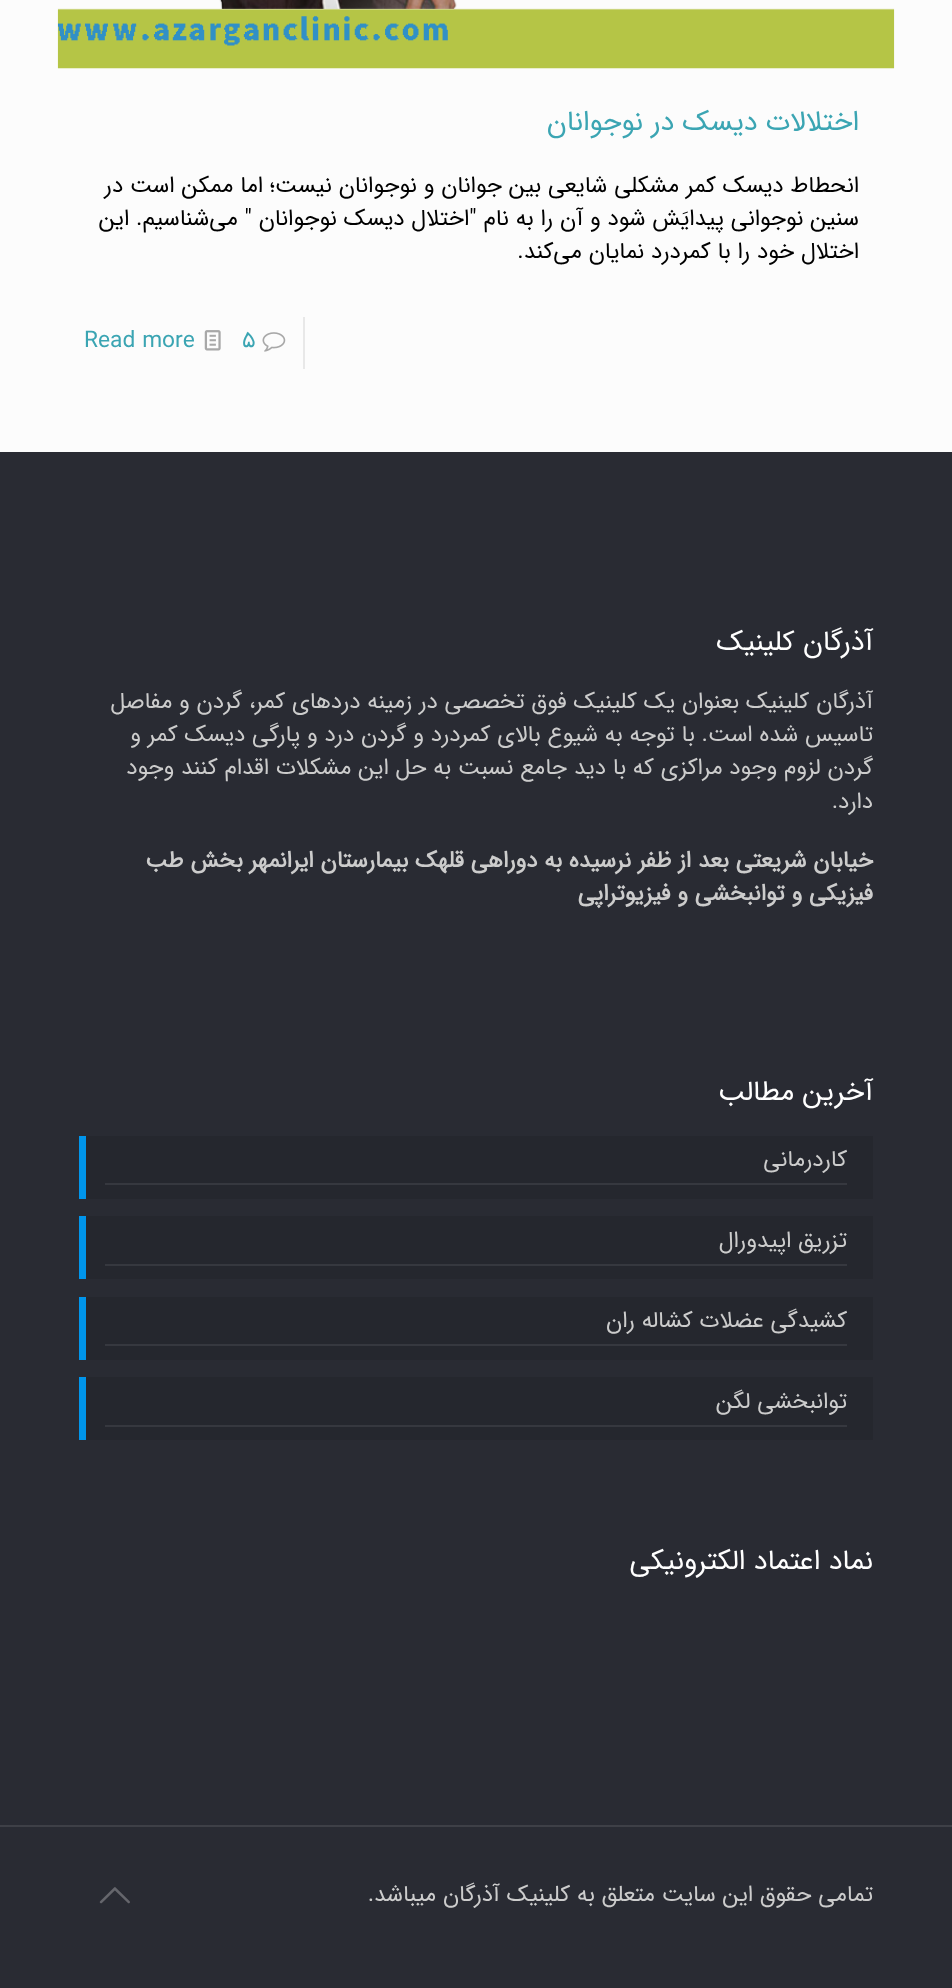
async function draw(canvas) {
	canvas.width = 952;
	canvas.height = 1988;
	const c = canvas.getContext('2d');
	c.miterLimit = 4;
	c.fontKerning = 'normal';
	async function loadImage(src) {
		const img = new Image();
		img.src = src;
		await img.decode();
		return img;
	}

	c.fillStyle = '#fcfcfc';
	c.fillRect(0, 0, 952, 1988);
	c.drawImage(await loadImage('img1.png'), 57, 0, 838, 69);
	c.direction = 'rtl';
	c.font = '28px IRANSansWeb';
	c.fillStyle = '#3ba5b3';
	c.fillText('اختلالات دیسک در نوجوانان', 859, 130);
	c.font = '22.75px IRANSansWeb';
	c.fillStyle = '#000';
	for (const [text, x, y] of [
		['انحطاط دیسک کمر مشکلی شایعی بین جوانان و نوجوانان نیست؛ اما ممکن است در', 859, 192],
		['سنین نوجوانی پیدایَش شود و آن را به نام "اختلال دیسک نوجوانان " می‌شناسیم. این', 859, 225],
		['اختلال خود را با کمردرد نمایان می‌کند.', 859, 258],
	]) {
		c.fillText(text, x, y);
	}
	c.fillStyle = '#e8e8e8';
	c.fillRect(303, 317, 2, 52);
	c.drawImage(await loadImage('img2.png'), 262, 332, 24, 20);
	c.direction = 'ltr';
	c.fillStyle = '#3ba5b3';
	c.fillText('۵', 242, 347);
	c.drawImage(await loadImage('img3.png'), 204, 330, 17, 21);
	c.fillText('Read more', 84, 347);
	c.fillStyle = '#292b33';
	c.fillRect(0, 452, 952, 1536);
	c.direction = 'rtl';
	c.font = '28px IRANSansWeb';
	c.fillStyle = '#fff';
	c.fillText('آذرگان کلینیک', 873, 650);
	c.font = '22.75px IRANSansWeb';
	c.fillStyle = '#ccc';
	for (const [text, x, y] of [
		['آذرگان کلینیک بعنوان یک کلینیک فوق تخصصی در زمینه دردهای کمر، گردن و مفاصل', 873, 708],
		['تاسیس شده است. با توجه به شیوع بالای کمردرد و گردن درد و پارگی دیسک کمر و', 873, 741],
		['گردن لزوم وجود مراکزی که با دید جامع نسبت به حل این مشکلات اقدام کنند وجود', 873, 774],
		['دارد.', 873, 808],
	]) {
		c.fillText(text, x, y);
	}
	c.font = 'bold 22.75px IRANSansWeb';
	c.fillText('خیابان شریعتی بعد از ظفر نرسیده به دوراهی قلهک بیمارستان ایرانمهر بخش طب', 873, 867);
	c.fillText('فیزیکی و توانبخشی و فیزیوتراپی', 873, 900);
	c.font = '28px IRANSansWeb';
	c.fillStyle = '#fff';
	c.fillText('آخرین مطالب', 873, 1100);
	c.fillStyle = '#25272e';
	c.fillRect(86, 1136, 787, 63);
	c.fillStyle = '#36383f';
	c.fillRect(105, 1183, 742, 2);
	c.font = '22.75px IRANSansWeb';
	c.fillStyle = '#ccc';
	c.fillText('کاردرمانی', 847, 1166);
	for (const [x, y, w, h, color] of [
		[79, 1136, 7, 63, '#0095eb'],
		[86, 1216, 787, 63, '#25272e'],
		[105, 1264, 742, 2, '#36383f'],
	]) {
		c.fillStyle = color;
		c.fillRect(x, y, w, h);
	}
	c.fillStyle = '#ccc';
	c.fillText('تزریق اپیدورال', 847, 1247);
	for (const [x, y, w, h, color] of [
		[79, 1216, 7, 63, '#0095eb'],
		[86, 1297, 787, 63, '#25272e'],
		[105, 1344, 742, 2, '#36383f'],
	]) {
		c.fillStyle = color;
		c.fillRect(x, y, w, h);
	}
	c.fillStyle = '#ccc';
	c.fillText('کشیدگی عضلات کشاله ران', 847, 1327);
	for (const [x, y, w, h, color] of [
		[79, 1297, 7, 63, '#0095eb'],
		[86, 1377, 787, 63, '#25272e'],
		[105, 1425, 742, 2, '#36383f'],
	]) {
		c.fillStyle = color;
		c.fillRect(x, y, w, h);
	}
	c.fillStyle = '#ccc';
	c.fillText('توانبخشی لگن', 847, 1408);
	c.fillStyle = '#0095eb';
	c.fillRect(79, 1377, 7, 63);
	c.font = '28px IRANSansWeb';
	c.fillStyle = '#fff';
	c.fillText('نماد اعتماد الکترونیکی', 873, 1569);
	c.fillStyle = '#3e4047';
	c.fillRect(0, 1825, 952, 2);
	c.font = '22.75px IRANSansWeb';
	c.fillStyle = '#ccc';
	c.fillText('تمامی حقوق این سایت متعلق به کلینیک آذرگان میباشد.', 873, 1901);
	c.drawImage(await loadImage('img4.png'), 99, 1887, 31, 17);
}

draw(document.querySelector('canvas'));
